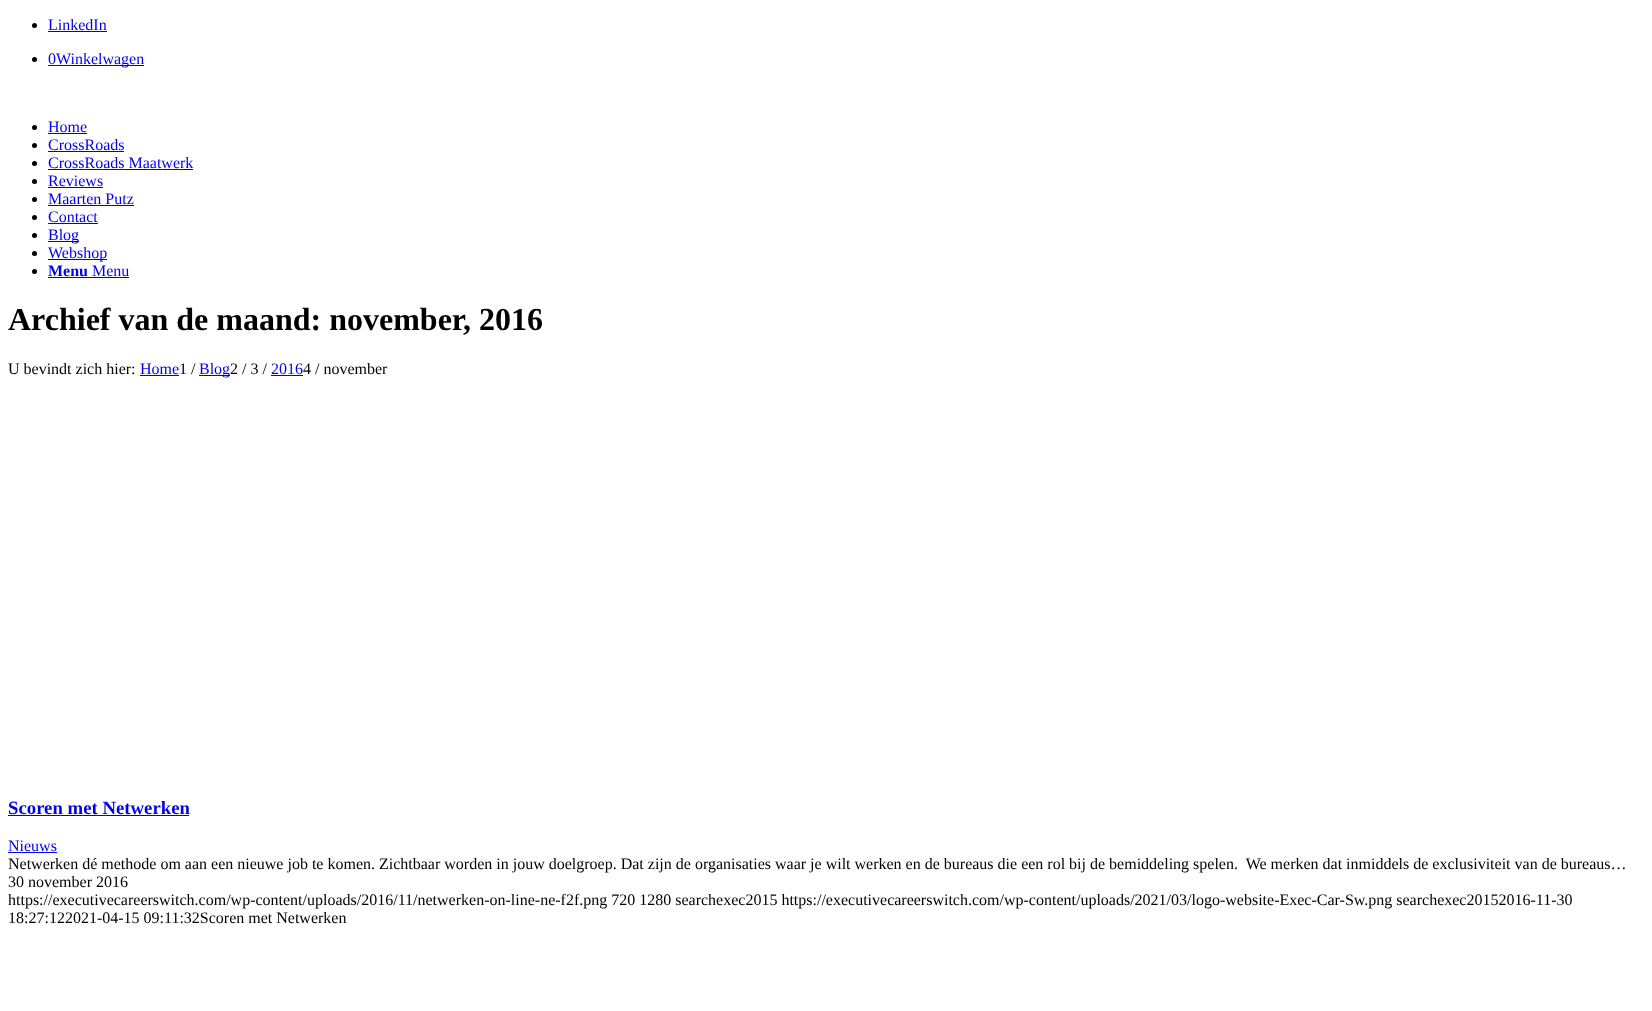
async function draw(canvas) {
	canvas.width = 1652;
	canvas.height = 1011;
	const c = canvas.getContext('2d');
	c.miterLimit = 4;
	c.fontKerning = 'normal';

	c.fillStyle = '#fff';
	c.fillRect(0, 0, 1652, 1011);
	c.fillStyle = '#000';
	c.beginPath();
	c.arc(34.5, 25.5, 2.5, 0, 2 * Math.PI);
	c.fill();
	c.font = '16px Liberation Serif';
	c.fillStyle = '#00e';
	c.fillText('LinkedIn', 48, 30);
	c.fillRect(48, 31, 59, 1);
	c.fillStyle = '#000';
	c.beginPath();
	c.arc(34.5, 59.5, 2.5, 0, 2 * Math.PI);
	c.fill();
	c.fillStyle = '#00e';
	c.fillRect(48, 65, 96, 1);
	c.fillText('0Winkelwagen', 48, 64);
	c.fillStyle = '#000';
	c.beginPath();
	c.arc(34.5, 127.5, 2.5, 0, 2 * Math.PI);
	c.fill();
	c.fillStyle = '#00e';
	c.fillText('Home', 48, 132);
	c.fillRect(48, 133, 39, 1);
	c.fillStyle = '#000';
	c.beginPath();
	c.arc(34.5, 145.5, 2.5, 0, 2 * Math.PI);
	c.fill();
	c.fillStyle = '#00e';
	c.fillText('CrossRoads', 48, 150);
	c.fillRect(48, 151, 76, 1);
	c.fillStyle = '#000';
	c.beginPath();
	c.arc(34.5, 163.5, 2.5, 0, 2 * Math.PI);
	c.fill();
	c.fillStyle = '#00e';
	c.fillText('CrossRoads Maatwerk', 48, 168);
	c.fillRect(48, 169, 145, 1);
	c.fillStyle = '#000';
	c.beginPath();
	c.arc(34.5, 181.5, 2.5, 0, 2 * Math.PI);
	c.fill();
	c.fillStyle = '#00e';
	c.fillText('Reviews', 48, 186);
	c.fillRect(48, 187, 55, 1);
	c.fillStyle = '#000';
	c.beginPath();
	c.arc(34.5, 199.5, 2.5, 0, 2 * Math.PI);
	c.fill();
	c.fillStyle = '#00e';
	c.fillText('Maarten Putz', 48, 204);
	c.fillRect(48, 205, 86, 1);
	c.fillStyle = '#000';
	c.beginPath();
	c.arc(34.5, 217.5, 2.5, 0, 2 * Math.PI);
	c.fill();
	c.fillStyle = '#00e';
	c.fillText('Contact', 48, 222);
	c.fillRect(48, 223, 50, 1);
	c.fillStyle = '#000';
	c.beginPath();
	c.arc(34.5, 235.5, 2.5, 0, 2 * Math.PI);
	c.fill();
	c.fillStyle = '#00e';
	c.fillRect(48, 241, 31, 1);
	c.fillText('Blog', 48, 240);
	c.fillStyle = '#000';
	c.beginPath();
	c.arc(34.5, 253.5, 2.5, 0, 2 * Math.PI);
	c.fill();
	c.fillStyle = '#00e';
	c.fillRect(48, 259, 59, 1);
	c.fillText('Webshop', 48, 258);
	c.fillStyle = '#000';
	c.beginPath();
	c.arc(34.5, 271.5, 2.5, 0, 2 * Math.PI);
	c.fill();
	c.font = 'bold 16px Liberation Serif';
	c.fillStyle = '#00e';
	c.fillText('Menu', 48, 276);
	c.fillRect(48, 277, 81, 1);
	c.font = '16px Liberation Serif';
	c.fillText('Menu', 92, 276);
	c.font = 'bold 32px Liberation Serif';
	c.fillStyle = '#000';
	c.fillText('Archief van de maand: november, 2016', 8, 330);
	c.font = '16px Liberation Serif';
	c.fillText('U bevindt zich hier:', 8, 374);
	c.fillStyle = '#00e';
	c.fillText('Home', 140, 374);
	c.fillRect(140, 375, 39, 1);
	c.fillStyle = '#000';
	c.fillText('1 /', 179, 374);
	c.fillStyle = '#00e';
	c.fillRect(199, 375, 31, 1);
	c.fillText('Blog', 199, 374);
	c.fillStyle = '#000';
	c.fillText('2 / 3 /', 230, 374);
	c.fillStyle = '#00e';
	c.fillText('2016', 271, 374);
	c.fillRect(271, 375, 32, 1);
	c.fillStyle = '#000';
	c.fillText('4 / november', 303, 374);
	c.font = 'bold 18.75px Liberation Serif';
	c.fillStyle = '#00e';
	c.fillText('Scoren met Netwerken', 8, 814);
	c.fillRect(8, 815, 181, 1);
	c.font = '16px Liberation Serif';
	c.fillText('Nieuws', 8, 851);
	c.fillRect(8, 852, 49, 1);
	c.fillStyle = '#000';
	for (const [text, x, y] of [
		['Netwerken dé methode om aan een nieuwe job te komen. Zichtbaar worden in jouw doelgroep. Dat zijn de organisaties waar je wilt werken en de bureaus die een rol bij de bemiddeling spelen.  We merken dat inmiddels de exclusiviteit van de bureaus…', 8, 869],
		['30 november 2016', 8, 887],
		['https://executivecareerswitch.com/wp-content/uploads/2016/11/netwerken-on-line-ne-f2f.png 720 1280 searchexec2015 https://executivecareerswitch.com/wp-content/uploads/2021/03/logo-website-Exec-Car-Sw.png searchexec20152016-11-30', 8, 905],
		['18:27:122021-04-15 09:11:32Scoren met Netwerken', 8, 923],
	]) {
		c.fillText(text, x, y);
	}
}

draw(document.querySelector('canvas'));
